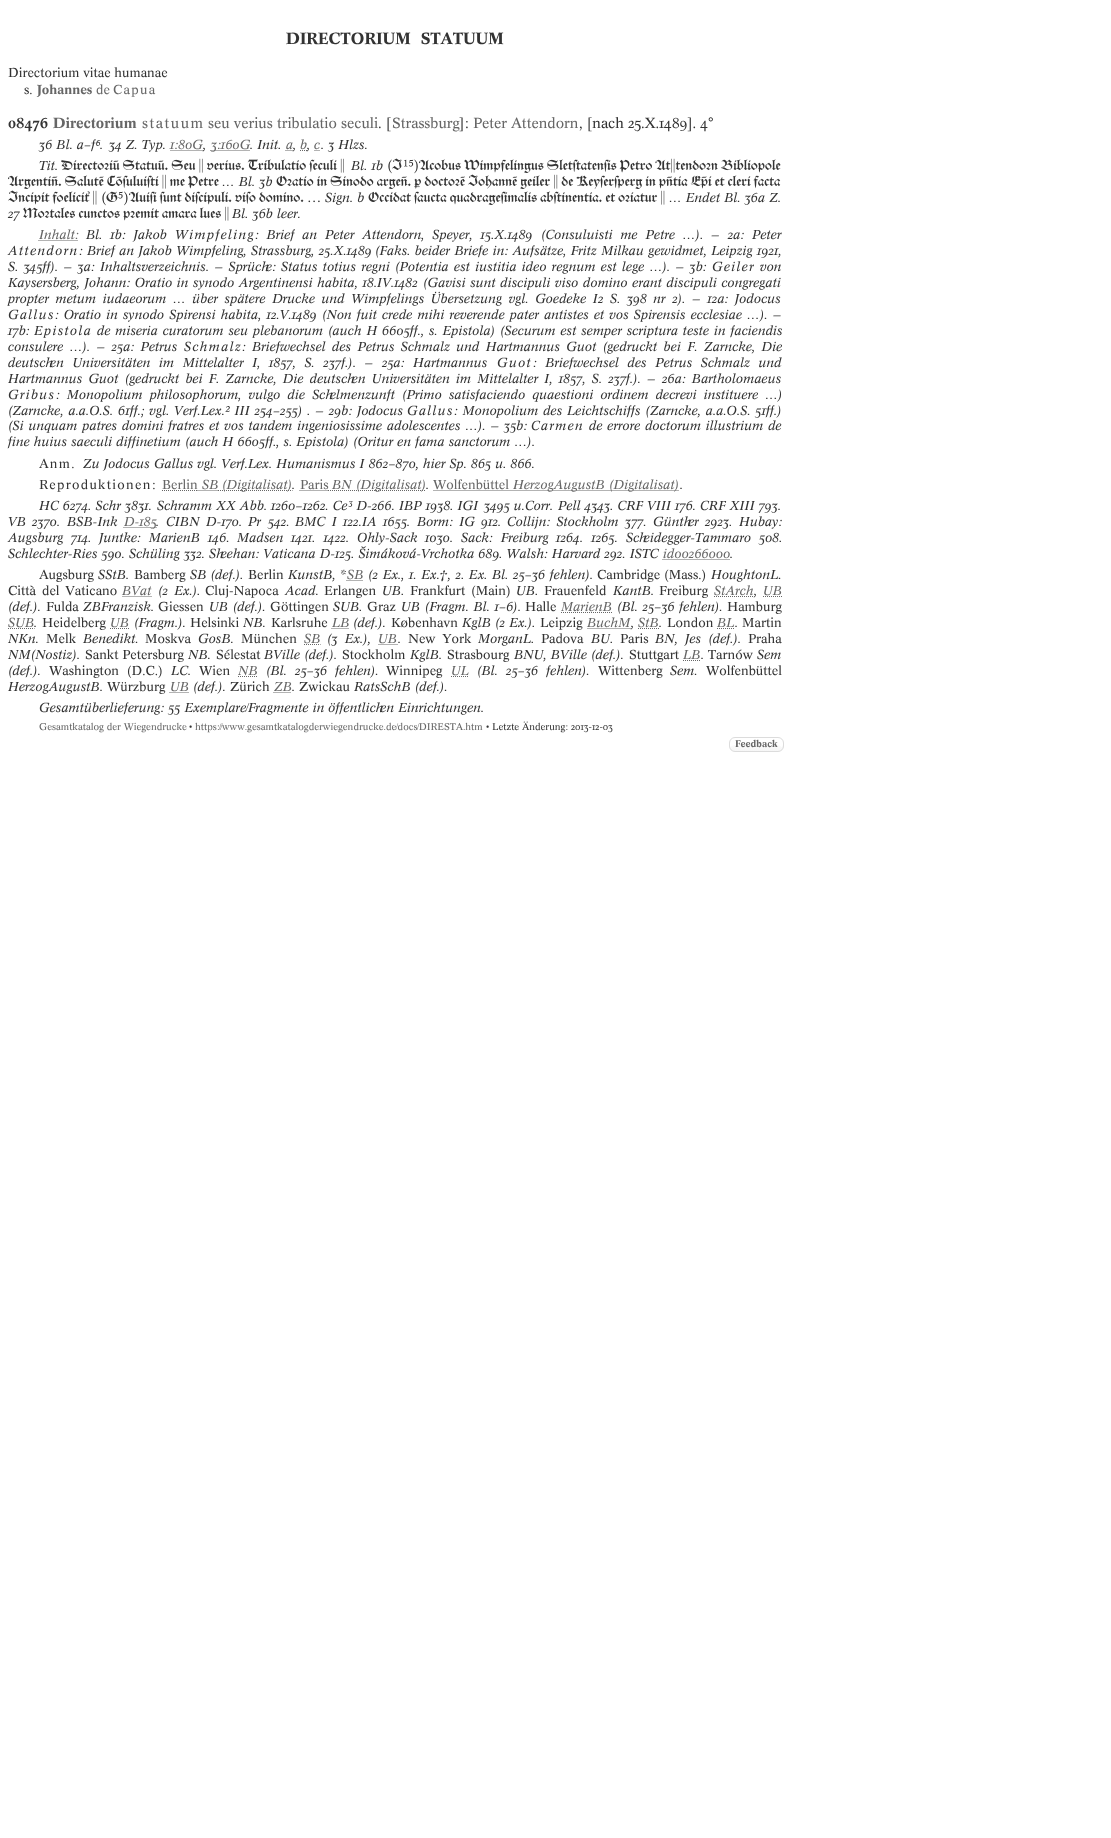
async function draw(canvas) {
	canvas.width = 1111;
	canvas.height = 1838;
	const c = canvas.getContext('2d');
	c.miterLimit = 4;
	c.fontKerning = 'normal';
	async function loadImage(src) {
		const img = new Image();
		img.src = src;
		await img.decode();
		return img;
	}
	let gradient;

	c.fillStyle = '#fff';
	c.fillRect(0, 0, 1111, 1838);
	c.font = 'bold 16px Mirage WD';
	c.fillStyle = '#333';
	c.fillText('DIRECTORIUM  STATUUM', 286, 44);
	c.font = '12.8px Mirage WD';
	c.fillText('Directorium vitae humanae', 8, 77);
	c.fillText('s.', 24, 94);
	c.font = 'bold 12.8px Mirage WD';
	c.fillStyle = '#666';
	c.fillText('Johannes', 37, 94);
	c.font = '12.8px Mirage WD';
	c.fillText('de', 96, 94);
	c.letterSpacing = '1.25px';
	c.fillText('Capua', 113, 94);
	c.letterSpacing = '0px';
	c.font = 'bold 14.4px Mirage WD';
	c.fillStyle = '#333';
	c.fillText('08476', 8, 128);
	c.fillStyle = '#666';
	c.fillText('Directorium', 53, 128);
	c.letterSpacing = '1.5px';
	c.font = '14.4px Mirage WD';
	c.fillText('statuum', 142, 128);
	c.letterSpacing = '0px';
	c.fillText('seu verius tribulatio seculi', 208, 128);
	c.fillStyle = '#333';
	c.fillText('. [', 378, 128);
	c.fillStyle = '#666';
	c.fillText('Strassburg', 392, 128);
	c.fillStyle = '#333';
	c.fillText(']:', 459, 128);
	c.fillStyle = '#666';
	c.fillText('Peter Attendorn', 473, 128);
	c.fillStyle = '#333';
	c.fillText(', [nach 25.X.1489]. 4°', 579, 128);
	c.font = 'italic 12.8px Mirage WD';
	c.fillText('36 Bl. a–f⁶.', 39, 149);
	c.fillText('34 Z. Typ.', 109, 149);
	c.fillStyle = '#666';
	c.fillText('1:80G', 170, 149);
	c.beginPath();
	c.moveTo(170.5, 150.5);
	c.lineTo(203.5, 150.5);
	c.strokeStyle = '#666';
	c.setLineDash([1, 1]);
	c.stroke();
	c.fillStyle = '#333';
	c.fillText(',', 203, 149);
	c.beginPath();
	c.moveTo(210.5, 150.5);
	c.lineTo(250, 150.5);
	c.stroke();
	c.fillStyle = '#666';
	c.fillText('3:160G', 211, 149);
	c.fillStyle = '#333';
	c.fillText('. Init.', 250, 149);
	c.fillStyle = '#666';
	c.fillText('a', 286, 149);
	c.beginPath();
	c.moveTo(285.5, 150.5);
	c.lineTo(293, 150.5);
	c.stroke();
	c.fillStyle = '#333';
	c.fillText(',', 293, 149);
	c.fillStyle = '#666';
	c.fillText('b', 300, 149);
	c.beginPath();
	c.moveTo(300, 150.5);
	c.lineTo(307, 150.5);
	c.stroke();
	c.fillStyle = '#333';
	c.fillText(',', 307, 149);
	c.fillStyle = '#666';
	c.fillText('c', 314, 149);
	c.beginPath();
	c.moveTo(314.5, 150.5);
	c.lineTo(315.5, 150.5);
	c.moveTo(316.5, 150.5);
	c.lineTo(317.5, 150.5);
	c.moveTo(318.5, 150.5);
	c.lineTo(319.5, 150.5);
	c.moveTo(320.5, 150.5);
	c.lineTo(320.5, 150.5);
	c.setLineDash([]);
	c.stroke();
	c.fillStyle = '#333';
	c.fillText('. 3 Hlzs.', 321, 149);
	c.fillText('Tit.', 39, 170);
	c.drawImage(await loadImage('img1.png'), 61, 158, 283, 15);
	c.fillText('Bl. 1b', 351, 170);
	c.font = '14.4px Mirage WD';
	c.fillText('(', 387, 170);
	c.drawImage(await loadImage('img2.png'), 392, 158, 10, 12);
	c.fillText('¹⁵)', 403, 170);
	c.drawImage(await loadImage('img3.png'), 419, 158, 362, 15);
	c.drawImage(await loadImage('img4.png'), 8, 174, 211, 15);
	c.font = 'italic 12.8px Mirage WD';
	c.fillText('… Bl. 3b', 222, 186);
	c.drawImage(await loadImage('img5.png'), 276, 174, 505, 15);
	c.drawImage(await loadImage('img6.png'), 8, 190, 89, 15);
	c.font = '14.4px Mirage WD';
	c.fillText('(', 101, 202);
	c.drawImage(await loadImage('img7.png'), 106, 191, 12, 11);
	c.fillText('⁵)', 118, 202);
	c.drawImage(await loadImage('img8.png'), 129, 191, 191, 14);
	c.font = 'italic 12.8px Mirage WD';
	c.fillText('Sign. b', 325, 202);
	c.drawImage(await loadImage('img9.png'), 368, 190, 297, 15);
	c.fillText('… Endet Bl. 36a Z.', 669, 202);
	c.fillText('27', 8, 218);
	c.drawImage(await loadImage('img10.png'), 23, 206, 206, 15);
	c.fillText('Bl. 36b leer.', 232, 218);
	c.fillStyle = '#666';
	c.fillText('Inhalt:', 39, 239);
	c.beginPath();
	c.moveTo(38.5, 240.5);
	c.lineTo(78.5, 240.5);
	c.setLineDash([1, 1]);
	c.stroke();
	c.wordSpacing = '3.75px';
	c.fillStyle = '#333';
	c.fillText('Bl. 1b: Jakob', 86, 239);
	c.letterSpacing = '1.25px';
	c.wordSpacing = '0px';
	c.fillText('Wimpfeling', 175, 239);
	c.letterSpacing = '0px';
	c.wordSpacing = '3.75px';
	c.fillText(': Brief an Peter Attendorn, Speyer, 15.X.1489', 255, 239);
	c.fillText('(Consuluisti me Petre …). — 2a: Peter', 541, 239);
	c.letterSpacing = '1.25px';
	c.wordSpacing = '0px';
	c.fillText('Attendorn', 8, 255);
	c.letterSpacing = '0px';
	c.wordSpacing = '0.25px';
	c.fillText(': Brief an Jakob Wimpfeling, Strassburg, 25.X.1489', 79, 255);
	c.fillText('(Faks. beider Briefe in: Aufsätze, Fritz Milkau gewidmet, Leipzig 1921,', 375, 255);
	c.wordSpacing = '1.25px';
	c.fillText('S. 345ff). — 3a: Inhaltsverzeichnis. — Sprüche: Status totius regni', 8, 271);
	c.fillText('(Potentia est iustitia ideo regnum est lege …). — 3b:', 395, 271);
	c.letterSpacing = '1.25px';
	c.wordSpacing = '0px';
	c.fillText('Geiler', 712, 271);
	c.letterSpacing = '0px';
	c.fillText('von', 760, 271);
	c.wordSpacing = '0.5px';
	c.fillText('Kaysersberg, Johann: Oratio in synodo Argentinensi habita, 18.IV.1482', 8, 287);
	c.fillText('(Gavisi sunt discipuli viso domino erant discipuli congregati', 423, 287);
	c.wordSpacing = '2.5px';
	c.fillText('propter metum iudaeorum … über spätere Drucke und Wimpfelings Übersetzung vgl. Goedeke I2 S. 398 nr 2). — 12a: Jodocus', 8, 303);
	c.letterSpacing = '1.25px';
	c.wordSpacing = '0px';
	c.fillText('Gallus', 8, 319);
	c.letterSpacing = '0px';
	c.wordSpacing = '1px';
	c.fillText(': Oratio in synodo Spirensi habita, 12.V.1489', 55, 319);
	c.fillText('(Non fuit crede mihi reverende pater antistes et vos Spirensis ecclesiae …). —', 322, 319);
	c.wordSpacing = '0px';
	c.fillText('17b:', 8, 335);
	c.letterSpacing = '1.25px';
	c.fillText('Epistola', 34, 335);
	c.letterSpacing = '0px';
	c.wordSpacing = '0.75px';
	c.fillText('de miseria curatorum seu plebanorum (auch H 6605ff., s. Epistola)', 97, 335);
	c.fillText('(Securum est semper scriptura teste in faciendis', 500, 335);
	c.wordSpacing = '2.25px';
	c.fillText('consulere …). — 25a: Petrus', 8, 351);
	c.letterSpacing = '1.25px';
	c.wordSpacing = '0px';
	c.fillText('Schmalz', 184, 351);
	c.letterSpacing = '0px';
	c.wordSpacing = '2.25px';
	c.fillText(': Briefwechsel des Petrus Schmalz und Hartmannus Guot (gedruckt bei F. Zarncke, Die', 242, 351);
	c.wordSpacing = '4.5px';
	c.fillText('deutschen Universitäten im Mittelalter I, 1857, S. 237f.). — 25a: Hartmannus', 8, 367);
	c.letterSpacing = '1.25px';
	c.wordSpacing = '0px';
	c.fillText('Guot', 497, 367);
	c.letterSpacing = '0px';
	c.wordSpacing = '4.5px';
	c.fillText(': Briefwechsel des Petrus Schmalz und', 533, 367);
	c.wordSpacing = '2.1px';
	c.fillText('Hartmannus Guot (gedruckt bei F. Zarncke, Die deutschen Universitäten im Mittelalter I, 1857, S. 237f.). — 26a: Bartholomaeus', 8, 383);
	c.letterSpacing = '1.25px';
	c.wordSpacing = '0px';
	c.fillText('Gribus', 8, 399);
	c.letterSpacing = '0px';
	c.wordSpacing = '3px';
	c.fillText(': Monopolium philosophorum, vulgo die Schelmenzunft', 56, 399);
	c.fillText('(Primo satisfaciendo quaestioni ordinem decrevi instituere …)', 402, 399);
	c.wordSpacing = '0.75px';
	c.fillText('(Zarncke, a.a.O.S. 61ff.; vgl. Verf.Lex.² III 254–255) . — 29b: Jodocus', 8, 415);
	c.letterSpacing = '1.25px';
	c.wordSpacing = '0px';
	c.fillText('Gallus', 407, 415);
	c.letterSpacing = '0px';
	c.wordSpacing = '0.75px';
	c.fillText(': Monopolium des Leichtschiffs (Zarncke, a.a.O.S. 51ff.)', 454, 415);
	c.fillText('(Si unquam patres domini fratres et vos tandem ingeniosissime adolescentes …). — 35b:', 8, 430);
	c.letterSpacing = '1.25px';
	c.wordSpacing = '0px';
	c.fillText('Carmen', 531, 430);
	c.letterSpacing = '0px';
	c.wordSpacing = '0.75px';
	c.fillText('de errore doctorum illustrium de', 589, 430);
	c.wordSpacing = '0px';
	c.fillText('fine huius saeculi diffinetium (auch H 6605ff., s. Epistola) (Oritur en fama sanctorum …).', 8, 446);
	c.letterSpacing = '1.25px';
	c.font = '12.8px Mirage WD';
	c.fillText('Anm.', 39, 468);
	c.letterSpacing = '0px';
	c.font = 'italic 12.8px Mirage WD';
	c.fillText('Zu Jodocus Gallus vgl. Verf.Lex. Humanismus I 862–870, hier Sp. 865 u. 866.', 83, 468);
	c.letterSpacing = '1.25px';
	c.font = '12.8px Mirage WD';
	c.fillText('Reproduktionen:', 39, 489);
	c.letterSpacing = '0px';
	c.fillStyle = '#666';
	c.fillText('Berlin', 162, 489);
	c.beginPath();
	c.moveTo(162, 490.5);
	c.lineTo(197.5, 490.5);
	c.stroke();
	c.beginPath();
	c.moveTo(197.5, 490.5);
	c.lineTo(198.5, 490.5);
	c.moveTo(199.5, 490.5);
	c.lineTo(200.5, 490.5);
	c.setLineDash([]);
	c.stroke();
	c.font = 'italic 12.8px Mirage WD';
	c.fillText('SB', 202, 489);
	c.beginPath();
	c.moveTo(201.5, 490.5);
	c.lineTo(218, 490.5);
	c.setLineDash([1, 1]);
	c.stroke();
	c.beginPath();
	c.moveTo(218, 490.5);
	c.lineTo(292.5, 490.5);
	c.stroke();
	c.fillText('(Digitalisat)', 222, 489);
	c.fillStyle = '#333';
	c.fillText('.', 292, 489);
	c.font = '12.8px Mirage WD';
	c.fillStyle = '#666';
	c.fillText('Paris', 300, 489);
	c.beginPath();
	c.moveTo(299.5, 490.5);
	c.lineTo(328, 490.5);
	c.stroke();
	c.beginPath();
	c.moveTo(328, 490.5);
	c.lineTo(329, 490.5);
	c.moveTo(330, 490.5);
	c.lineTo(331, 490.5);
	c.setLineDash([]);
	c.stroke();
	c.font = 'italic 12.8px Mirage WD';
	c.fillText('BN', 332, 489);
	c.beginPath();
	c.moveTo(332, 490.5);
	c.lineTo(352, 490.5);
	c.setLineDash([1, 1]);
	c.stroke();
	c.beginPath();
	c.moveTo(352, 490.5);
	c.lineTo(426, 490.5);
	c.stroke();
	c.fillText('(Digitalisat)', 356, 489);
	c.fillStyle = '#333';
	c.fillText('.', 426, 489);
	c.font = '12.8px Mirage WD';
	c.fillStyle = '#666';
	c.fillText('Wolfenbüttel', 433, 489);
	c.beginPath();
	c.moveTo(433.5, 490.5);
	c.lineTo(509.5, 490.5);
	c.stroke();
	c.beginPath();
	c.moveTo(513.5, 490.5);
	c.lineTo(605.5, 490.5);
	c.stroke();
	c.font = 'italic 12.8px Mirage WD';
	c.fillText('HerzogAugustB', 513, 489);
	c.beginPath();
	c.moveTo(509.5, 490.5);
	c.lineTo(510.5, 490.5);
	c.moveTo(511.5, 490.5);
	c.lineTo(512.5, 490.5);
	c.setLineDash([]);
	c.stroke();
	c.beginPath();
	c.moveTo(605.5, 490.5);
	c.lineTo(679.5, 490.5);
	c.setLineDash([1, 1]);
	c.stroke();
	c.fillText('(Digitalisat)', 609, 489);
	c.fillStyle = '#333';
	for (const [text, x, y] of [
		['.', 680, 489],
		['HC 6274. Schr 3831.', 39, 510],
		['Schramm XX Abb.', 157, 510],
		['1260–1262. Ce³ D-266. IBP 1938. IGI', 271, 510],
		['3495 u.Corr.', 484, 510],
		['Pell 4343. CRF VIII', 558, 510],
		['176. CRF XIII 793.', 675, 510],
		['VB', 8, 526],
		['2370.', 32, 526],
		['BSB-Ink', 67, 526],
	]) {
		c.fillText(text, x, y);
	}
	c.beginPath();
	c.moveTo(123.5, 527.5);
	c.lineTo(156.5, 527.5);
	c.stroke();
	c.fillStyle = '#666';
	c.fillText('D-185', 124, 526);
	c.fillStyle = '#333';
	for (const [text, x, y] of [
		['.', 156, 526],
		['CIBN', 166, 526],
		['D-170.', 206, 526],
		['Pr', 248, 526],
		['542.', 268, 526],
	]) {
		c.fillText(text, x, y);
	}
	c.wordSpacing = '2.25px';
	for (const [text, x, y] of [
		['BMC I', 295, 526],
		['122.IA 1655.', 343, 526],
		['Borm: IG', 417, 526],
	]) {
		c.fillText(text, x, y);
	}
	c.wordSpacing = '0px';
	c.fillText('912.', 481, 526);
	c.wordSpacing = '2.25px';
	c.fillText('Collijn: Stockholm', 507, 526);
	c.wordSpacing = '0px';
	for (const [text, x, y] of [
		['377.', 625, 526],
		['Günther', 653, 526],
		['2923.', 705, 526],
		['Hubay:', 739, 526],
		['Augsburg', 8, 542],
		['714.', 71, 542],
	]) {
		c.fillText(text, x, y);
	}
	c.wordSpacing = '4px';
	c.fillText('Juntke: MarienB', 99, 542);
	c.wordSpacing = '0px';
	c.fillText('146.', 208, 542);
	c.fillText('Madsen', 237, 542);
	c.wordSpacing = '4px';
	c.fillText('1421. 1422.', 291, 542);
	c.wordSpacing = '0px';
	c.fillText('Ohly-Sack', 357, 542);
	c.fillText('1030.', 425, 542);
	c.wordSpacing = '4px';
	c.fillText('Sack: Freiburg', 461, 542);
	c.fillText('1264. 1265.', 556, 542);
	c.wordSpacing = '0px';
	for (const [text, x, y] of [
		['Scheidegger-Tammaro', 626, 542],
		['508.', 759, 542],
		['Schlechter-Ries 590. Schüling 332. Sheehan: Vaticana D-125. Šimáková-Vrchotka 689. Walsh: Harvard 292. ISTC', 8, 558],
	]) {
		c.fillText(text, x, y);
	}
	c.fillStyle = '#666';
	c.fillText('id00266000', 663, 558);
	c.beginPath();
	c.moveTo(662.5, 559.5);
	c.lineTo(730, 559.5);
	c.stroke();
	c.fillStyle = '#333';
	c.fillText('.', 730, 558);
	c.font = '12.8px Mirage WD';
	c.fillText('Augsburg', 39, 579);
	c.font = 'italic 12.8px Mirage WD';
	c.fillText('SStB.', 98, 579);
	c.font = '12.8px Mirage WD';
	c.fillText('Bamberg', 134, 579);
	c.font = 'italic 12.8px Mirage WD';
	c.fillText('SB (def.).', 190, 579);
	c.font = '12.8px Mirage WD';
	c.fillText('Berlin', 248, 579);
	c.font = 'italic 12.8px Mirage WD';
	c.fillText('KunstB, *', 288, 579);
	c.fillStyle = '#666';
	c.fillText('SB', 347, 579);
	c.beginPath();
	c.moveTo(346.5, 580.5);
	c.lineTo(363, 580.5);
	c.stroke();
	c.wordSpacing = '0.5px';
	c.fillStyle = '#333';
	c.fillText('(2 Ex., 1. Ex.†, 2. Ex. Bl. 25–36 fehlen).', 368, 579);
	c.wordSpacing = '0px';
	c.font = '12.8px Mirage WD';
	c.fillText('Cambridge (Mass.)', 597, 579);
	c.font = 'italic 12.8px Mirage WD';
	c.fillText('HoughtonL.', 711, 579);
	c.wordSpacing = '2px';
	c.font = '12.8px Mirage WD';
	c.fillText('Città del Vaticano', 8, 595);
	c.wordSpacing = '0px';
	c.font = 'italic 12.8px Mirage WD';
	c.fillStyle = '#666';
	c.fillText('BVat', 122, 595);
	c.beginPath();
	c.moveTo(122.5, 596.5);
	c.lineTo(152, 596.5);
	c.stroke();
	c.wordSpacing = '2px';
	c.fillStyle = '#333';
	c.fillText('(2 Ex.).', 158, 595);
	c.wordSpacing = '0px';
	c.font = '12.8px Mirage WD';
	c.fillText('Cluj-Napoca', 205, 595);
	c.font = 'italic 12.8px Mirage WD';
	c.fillText('Acad.', 285, 595);
	c.font = '12.8px Mirage WD';
	c.fillText('Erlangen', 324, 595);
	c.font = 'italic 12.8px Mirage WD';
	c.fillText('UB.', 382, 595);
	c.wordSpacing = '2px';
	c.font = '12.8px Mirage WD';
	c.fillText('Frankfurt (Main)', 410, 595);
	c.wordSpacing = '0px';
	c.font = 'italic 12.8px Mirage WD';
	c.fillText('UB.', 516, 595);
	c.font = '12.8px Mirage WD';
	c.fillText('Frauenfeld', 544, 595);
	c.font = 'italic 12.8px Mirage WD';
	c.fillText('KantB.', 613, 595);
	c.font = '12.8px Mirage WD';
	c.fillText('Freiburg', 659, 595);
	c.font = 'italic 12.8px Mirage WD';
	c.fillStyle = '#666';
	c.fillText('StArch', 714, 595);
	c.beginPath();
	c.moveTo(714, 596.5);
	c.lineTo(754, 596.5);
	c.stroke();
	c.fillStyle = '#333';
	c.fillText(',', 754, 595);
	c.fillStyle = '#666';
	c.fillText('UB', 763, 595);
	c.beginPath();
	c.moveTo(763, 596.5);
	c.lineTo(782, 596.5);
	c.stroke();
	c.fillStyle = '#333';
	c.fillText('(def.).', 8, 611);
	c.font = '12.8px Mirage WD';
	c.fillText('Fulda', 46, 611);
	c.font = 'italic 12.8px Mirage WD';
	c.fillText('ZBFranzisk.', 83, 611);
	c.font = '12.8px Mirage WD';
	c.fillText('Giessen', 158, 611);
	c.wordSpacing = '0.5px';
	c.font = 'italic 12.8px Mirage WD';
	c.fillText('UB (def.).', 209, 611);
	c.wordSpacing = '0px';
	c.font = '12.8px Mirage WD';
	c.fillText('Göttingen', 270, 611);
	c.font = 'italic 12.8px Mirage WD';
	c.fillText('SUB.', 333, 611);
	c.font = '12.8px Mirage WD';
	c.fillText('Graz', 367, 611);
	c.wordSpacing = '0.5px';
	c.font = 'italic 12.8px Mirage WD';
	c.fillText('UB (Fragm. Bl. 1–6).', 401, 611);
	c.wordSpacing = '0px';
	c.font = '12.8px Mirage WD';
	c.fillText('Halle', 525, 611);
	c.font = 'italic 12.8px Mirage WD';
	c.fillStyle = '#666';
	c.fillText('MarienB', 561, 611);
	c.beginPath();
	c.moveTo(561, 612.5);
	c.lineTo(612.5, 612.5);
	c.stroke();
	c.wordSpacing = '0.5px';
	c.fillStyle = '#333';
	c.fillText('(Bl. 25–36 fehlen).', 617, 611);
	c.wordSpacing = '0px';
	c.font = '12.8px Mirage WD';
	c.fillText('Hamburg', 727, 611);
	c.font = 'italic 12.8px Mirage WD';
	c.fillStyle = '#666';
	c.fillText('SUB', 8, 627);
	c.beginPath();
	c.moveTo(8, 628.5);
	c.lineTo(34.5, 628.5);
	c.stroke();
	c.fillStyle = '#333';
	c.fillText('.', 34, 627);
	c.font = '12.8px Mirage WD';
	c.fillText('Heidelberg', 42, 627);
	c.font = 'italic 12.8px Mirage WD';
	c.fillStyle = '#666';
	c.fillText('UB', 110, 627);
	c.beginPath();
	c.moveTo(110, 628.5);
	c.lineTo(129.5, 628.5);
	c.stroke();
	c.fillStyle = '#333';
	c.fillText('(Fragm.).', 134, 627);
	c.font = '12.8px Mirage WD';
	c.fillText('Helsinki', 190, 627);
	c.font = 'italic 12.8px Mirage WD';
	c.fillText('NB.', 243, 627);
	c.font = '12.8px Mirage WD';
	c.fillText('Karlsruhe', 271, 627);
	c.font = 'italic 12.8px Mirage WD';
	c.fillStyle = '#666';
	c.fillText('LB', 332, 627);
	c.beginPath();
	c.moveTo(331.5, 628.5);
	c.lineTo(349, 628.5);
	c.stroke();
	c.fillStyle = '#333';
	c.fillText('(def.).', 353, 627);
	c.font = '12.8px Mirage WD';
	c.fillText('København', 391, 627);
	c.font = 'italic 12.8px Mirage WD';
	c.fillText('KglB (2 Ex.).', 462, 627);
	c.font = '12.8px Mirage WD';
	c.fillText('Leipzig', 540, 627);
	c.font = 'italic 12.8px Mirage WD';
	c.fillStyle = '#666';
	c.fillText('BuchM', 587, 627);
	c.beginPath();
	c.moveTo(587.5, 628.5);
	c.lineTo(630.5, 628.5);
	c.stroke();
	c.fillStyle = '#333';
	c.fillText(',', 631, 627);
	c.fillStyle = '#666';
	c.fillText('StB', 638, 627);
	c.beginPath();
	c.moveTo(638, 628.5);
	c.lineTo(659, 628.5);
	c.stroke();
	c.fillStyle = '#333';
	c.fillText('.', 659, 627);
	c.font = '12.8px Mirage WD';
	c.fillText('London', 667, 627);
	c.font = 'italic 12.8px Mirage WD';
	c.fillStyle = '#666';
	c.fillText('BL', 717, 627);
	c.beginPath();
	c.moveTo(717, 628.5);
	c.lineTo(735, 628.5);
	c.stroke();
	c.fillStyle = '#333';
	c.fillText('.', 735, 627);
	c.font = '12.8px Mirage WD';
	c.fillText('Martin', 742, 627);
	c.font = 'italic 12.8px Mirage WD';
	c.fillText('NKn.', 8, 643);
	c.font = '12.8px Mirage WD';
	c.fillText('Melk', 46, 643);
	c.font = 'italic 12.8px Mirage WD';
	c.fillText('Benedikt.', 83, 643);
	c.font = '12.8px Mirage WD';
	c.fillText('Moskva', 145, 643);
	c.font = 'italic 12.8px Mirage WD';
	c.fillText('GosB.', 198, 643);
	c.font = '12.8px Mirage WD';
	c.fillText('München', 241, 643);
	c.font = 'italic 12.8px Mirage WD';
	c.fillStyle = '#666';
	c.fillText('SB', 304, 643);
	c.beginPath();
	c.moveTo(304, 644.5);
	c.lineTo(320.5, 644.5);
	c.stroke();
	c.wordSpacing = '3px';
	c.fillStyle = '#333';
	c.fillText('(3 Ex.),', 327, 643);
	c.wordSpacing = '0px';
	c.fillStyle = '#666';
	c.fillText('UB', 378, 643);
	c.beginPath();
	c.moveTo(378.5, 644.5);
	c.lineTo(397.5, 644.5);
	c.stroke();
	c.fillStyle = '#333';
	c.fillText('.', 398, 643);
	c.wordSpacing = '3px';
	c.font = '12.8px Mirage WD';
	c.fillText('New York', 408, 643);
	c.wordSpacing = '0px';
	c.font = 'italic 12.8px Mirage WD';
	c.fillText('MorganL.', 478, 643);
	c.font = '12.8px Mirage WD';
	c.fillText('Padova', 541, 643);
	c.font = 'italic 12.8px Mirage WD';
	c.fillText('BU.', 591, 643);
	c.font = '12.8px Mirage WD';
	c.fillText('Paris', 620, 643);
	c.wordSpacing = '3px';
	c.font = 'italic 12.8px Mirage WD';
	c.fillText('BN, Jes (def.).', 655, 643);
	c.wordSpacing = '0px';
	c.font = '12.8px Mirage WD';
	c.fillText('Praha', 748, 643);
	c.font = 'italic 12.8px Mirage WD';
	c.fillText('NM(Nostiz).', 8, 659);
	c.font = '12.8px Mirage WD';
	c.fillText('Sankt Petersburg', 85, 659);
	c.font = 'italic 12.8px Mirage WD';
	c.fillText('NB.', 188, 659);
	c.font = '12.8px Mirage WD';
	c.fillText('Sélestat', 216, 659);
	c.font = 'italic 12.8px Mirage WD';
	c.fillText('BVille (def.).', 264, 659);
	c.font = '12.8px Mirage WD';
	c.fillText('Stockholm', 342, 659);
	c.font = 'italic 12.8px Mirage WD';
	c.fillText('KglB.', 410, 659);
	c.font = '12.8px Mirage WD';
	c.fillText('Strasbourg', 447, 659);
	c.font = 'italic 12.8px Mirage WD';
	c.fillText('BNU, BVille (def.).', 514, 659);
	c.font = '12.8px Mirage WD';
	c.fillText('Stuttgart', 629, 659);
	c.font = 'italic 12.8px Mirage WD';
	c.fillStyle = '#666';
	c.fillText('LB', 683, 659);
	c.beginPath();
	c.moveTo(683, 660.5);
	c.lineTo(701, 660.5);
	c.stroke();
	c.fillStyle = '#333';
	c.fillText('.', 701, 659);
	c.font = '12.8px Mirage WD';
	c.fillText('Tarnów', 708, 659);
	c.font = 'italic 12.8px Mirage WD';
	c.fillText('Sem', 757, 659);
	c.fillText('(def.).', 8, 675);
	c.wordSpacing = '4px';
	c.font = '12.8px Mirage WD';
	c.fillText('Washington (D.C.)', 49, 675);
	c.wordSpacing = '0px';
	c.font = 'italic 12.8px Mirage WD';
	c.fillText('LC.', 171, 675);
	c.font = '12.8px Mirage WD';
	c.fillText('Wien', 199, 675);
	c.font = 'italic 12.8px Mirage WD';
	c.fillStyle = '#666';
	c.fillText('NB', 238, 675);
	c.beginPath();
	c.moveTo(238, 676.5);
	c.lineTo(258, 676.5);
	c.stroke();
	c.wordSpacing = '4px';
	c.fillStyle = '#333';
	c.fillText('(Bl. 25–36 fehlen).', 266, 675);
	c.wordSpacing = '0px';
	c.font = '12.8px Mirage WD';
	c.fillText('Winnipeg', 386, 675);
	c.font = 'italic 12.8px Mirage WD';
	c.fillStyle = '#666';
	c.fillText('UL', 451, 675);
	c.beginPath();
	c.moveTo(451, 676.5);
	c.lineTo(469, 676.5);
	c.stroke();
	c.wordSpacing = '4px';
	c.fillStyle = '#333';
	c.fillText('(Bl. 25–36 fehlen).', 477, 675);
	c.wordSpacing = '0px';
	c.font = '12.8px Mirage WD';
	c.fillText('Wittenberg', 598, 675);
	c.font = 'italic 12.8px Mirage WD';
	c.fillText('Sem.', 670, 675);
	c.font = '12.8px Mirage WD';
	c.fillText('Wolfenbüttel', 706, 675);
	c.font = 'italic 12.8px Mirage WD';
	c.fillText('HerzogAugustB.', 8, 691);
	c.font = '12.8px Mirage WD';
	c.fillText('Würzburg', 107, 691);
	c.font = 'italic 12.8px Mirage WD';
	c.fillStyle = '#666';
	c.fillText('UB', 170, 691);
	c.beginPath();
	c.moveTo(169.5, 692.5);
	c.lineTo(188.5, 692.5);
	c.stroke();
	c.fillStyle = '#333';
	c.fillText('(def.).', 193, 691);
	c.font = '12.8px Mirage WD';
	c.fillText('Zürich', 230, 691);
	c.font = 'italic 12.8px Mirage WD';
	c.fillStyle = '#666';
	c.fillText('ZB', 274, 691);
	c.beginPath();
	c.moveTo(273.5, 692.5);
	c.lineTo(291.5, 692.5);
	c.stroke();
	c.fillStyle = '#333';
	c.fillText('.', 292, 691);
	c.font = '12.8px Mirage WD';
	c.fillText('Zwickau', 299, 691);
	c.font = 'italic 12.8px Mirage WD';
	c.fillText('RatsSchB (def.).', 354, 691);
	c.fillText('Gesamtüberlieferung: 55 Exemplare/Fragmente in öffentlichen Einrichtungen.', 39, 712);
	c.font = '9.6px Mirage WD';
	c.fillStyle = '#666';
	c.fillText('Gesamtkatalog der Wiegendrucke', 39, 730);
	c.fillStyle = '#333';
	c.fillText('•', 189, 730);
	c.fillStyle = '#666';
	c.fillText('https://www.gesamtkatalogderwiegendrucke.de/docs/DIRESTA.htm', 195, 730);
	c.fillStyle = '#333';
	c.fillText('• Letzte Änderung: 2013-12-03', 486, 730);
	c.save();
	c.beginPath();
	c.roundRect(729, 737, 55, 15, 6);
	c.clip();
	gradient = c.createLinearGradient(757, 738, 757, 751);
	gradient.addColorStop(0.05, '#fff');
	gradient.addColorStop(1, '#f6f6f6');
	c.fillStyle = gradient;
	c.fillRect(729, 738, 55, 13);
	c.restore();
	c.fillStyle = '#fff';
	c.beginPath();
	c.moveTo(735, 745);
	c.lineTo(779, 745);
	c.bezierCurveTo(780, 746, 782, 747, 782, 748);
	c.lineTo(783, 744);
	c.bezierCurveTo(783, 737, 777, 738, 771, 738);
	c.lineTo(742, 738);
	c.bezierCurveTo(738, 738, 730, 737, 730, 743);
	c.lineTo(730, 748);
	c.bezierCurveTo(731, 746, 733, 745, 735, 745);
	c.closePath();
	c.fill();
	c.beginPath();
	c.roundRect(729.5, 737.5, 54, 14, 5.5);
	c.strokeStyle = '#dcdcdc';
	c.setLineDash([]);
	c.stroke();
	c.font = 'bold 9.6px Mirage WD';
	c.fillStyle = '#666';
	c.fillText('Feedback', 735, 747);
}

draw(document.querySelector('canvas'));
